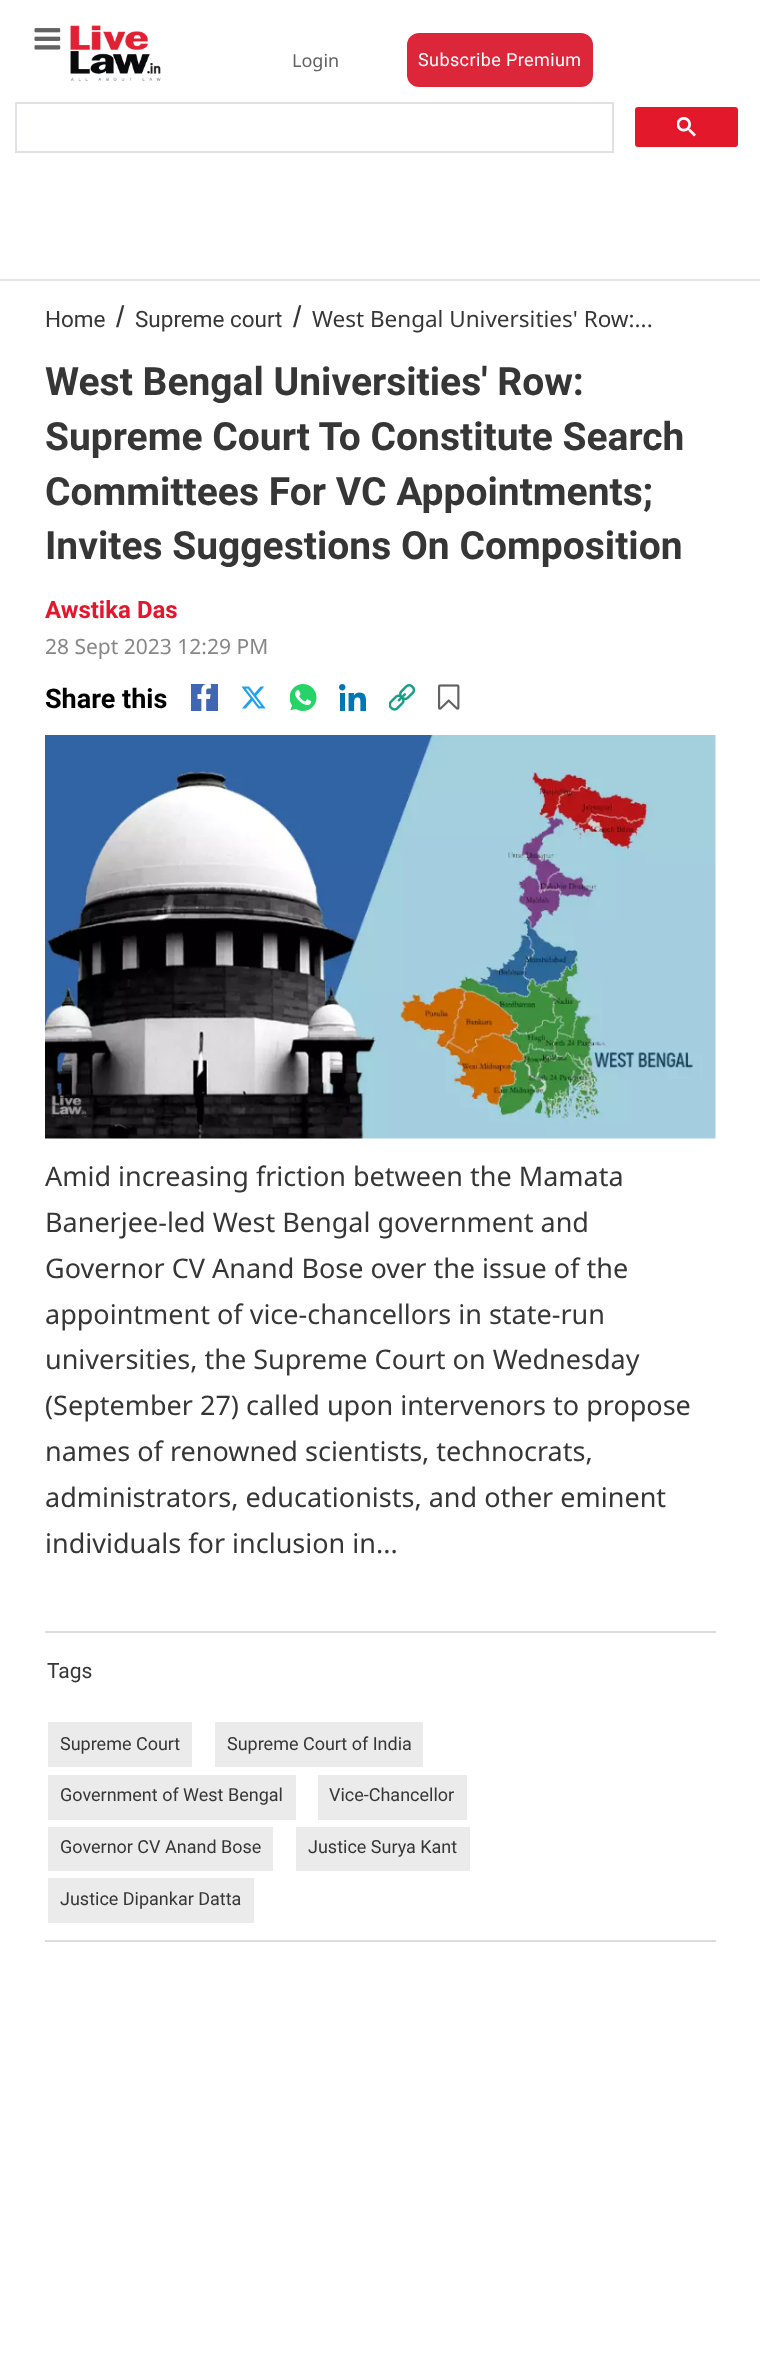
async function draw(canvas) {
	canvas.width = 760;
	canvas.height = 2354;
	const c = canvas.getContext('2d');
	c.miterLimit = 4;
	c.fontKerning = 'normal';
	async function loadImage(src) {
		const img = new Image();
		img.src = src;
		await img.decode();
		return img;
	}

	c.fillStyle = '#fff';
	c.fillRect(0, 0, 760, 2354);
	c.drawImage(await loadImage('img1.png'), 34, 28, 27, 22);
	c.drawImage(await loadImage('img2.png'), 70, 25, 91, 56);
	c.font = '18px Noto Sans';
	c.fillStyle = '#626262';
	c.fillText('Login', 292, 67);
	c.fillStyle = '#dc2639';
	c.beginPath();
	c.roundRect(407, 33, 186, 54, 12);
	c.fill();
	c.letterSpacing = '0.4px';
	c.font = '18px Roboto';
	c.fillStyle = '#fff';
	c.fillText('Subscribe Premium', 418, 66);
	c.strokeStyle = '#dfe1e5';
	c.lineWidth = 2;
	c.strokeRect(16, 103, 597, 49);
	c.fillStyle = '#e3182b';
	c.beginPath();
	c.roundRect(636, 108, 101, 38, 2);
	c.fill();
	c.strokeStyle = '#e3182b';
	c.stroke();
	c.drawImage(await loadImage('img3.png'), 677, 117, 19, 20);
	c.fillStyle = '#e4e4e4';
	c.fillRect(0, 279, 760, 2);
	c.letterSpacing = '0px';
	c.font = '22.5px Roboto';
	c.fillStyle = '#363636';
	c.fillText('Home', 45, 327);
	c.font = '30px Liberation Sans';
	c.fillText('/', 116, 327);
	c.font = '22.5px Roboto';
	c.fillText('Supreme court', 135, 327);
	c.font = '30px Liberation Sans';
	c.fillText('/', 293, 327);
	c.font = '22.5px Noto Sans';
	c.fillText('West Bengal Universities\' Row:...', 312, 327);
	c.font = 'bold 39px Roboto';
	for (const [text, x, y] of [
		['West Bengal Universities\' Row:', 45, 395],
		['Supreme Court To Constitute Search', 45, 450],
		['Committees For VC Appointments;', 45, 505],
		['Invites Suggestions On Composition', 45, 559],
	]) {
		c.fillText(text, x, y);
	}
	c.font = 'bold 24px Roboto';
	c.fillStyle = '#e4182c';
	c.fillText('Awstika Das', 45, 618);
	c.font = '21px Noto Sans';
	c.fillStyle = '#878787';
	c.fillText('28 Sept 2023 12:29 PM', 45, 654);
	c.font = 'bold 27px Roboto';
	c.fillStyle = '#000';
	c.fillText('Share this', 45, 708);
	c.fillStyle = '#4267b2';
	c.fillRect(191, 684, 27, 27);
	c.drawImage(await loadImage('img4.png'), 197, 684, 14, 27);
	c.drawImage(await loadImage('img5.png'), 241, 686, 25, 23);
	c.drawImage(await loadImage('img6.png'), 290, 684, 27, 27);
	c.drawImage(await loadImage('img7.png'), 339, 684, 27, 27);
	c.drawImage(await loadImage('img8.png'), 389, 684, 27, 27);
	c.drawImage(await loadImage('img9.png'), 438, 684, 22, 26);
	c.drawImage(await loadImage('img10.png'), 45, 735, 671, 404);
	c.font = '27px Noto Sans';
	c.fillStyle = '#363636';
	for (const [text, x, y] of [
		['Amid increasing friction between the Mamata', 45, 1186],
		['Banerjee-led West Bengal government and', 45, 1232],
		['Governor CV Anand Bose over the issue of the', 45, 1278],
		['appointment of vice-chancellors in state-run', 45, 1324],
		['universities, the Supreme Court on Wednesday', 45, 1369],
		['(September 27) called upon intervenors to propose', 45, 1415],
		['names of renowned scientists, technocrats,', 45, 1461],
		['administrators, educationists, and other eminent', 45, 1507],
		['individuals for inclusion in...', 45, 1553],
	]) {
		c.fillText(text, x, y);
	}
	c.fillStyle = '#dcdcdc';
	c.fillRect(45, 1631, 671, 2);
	c.fillRect(45, 1940, 671, 2);
	c.font = '21px Roboto';
	c.fillStyle = '#363636';
	c.fillText('Tags', 47, 1678);
	c.fillStyle = '#ebebeb';
	c.fillRect(48, 1722, 144, 45);
	c.font = '18px Roboto';
	c.fillStyle = '#363636';
	c.fillText('Supreme Court', 60, 1750);
	c.fillStyle = '#ebebeb';
	c.fillRect(215, 1722, 208, 45);
	c.fillStyle = '#363636';
	c.fillText('Supreme Court of India', 227, 1750);
	c.fillStyle = '#ebebeb';
	c.fillRect(48, 1775, 248, 45);
	c.fillStyle = '#363636';
	c.fillText('Government of West Bengal', 60, 1801);
	c.fillStyle = '#ebebeb';
	c.fillRect(318, 1775, 149, 45);
	c.fillStyle = '#363636';
	c.fillText('Vice-Chancellor', 329, 1801);
	c.fillStyle = '#ebebeb';
	c.fillRect(48, 1827, 225, 44);
	c.fillStyle = '#363636';
	c.fillText('Governor CV Anand Bose', 60, 1853);
	c.fillStyle = '#ebebeb';
	c.fillRect(296, 1827, 174, 44);
	c.fillStyle = '#363636';
	c.fillText('Justice Surya Kant', 308, 1853);
	c.fillStyle = '#ebebeb';
	c.fillRect(48, 1878, 206, 45);
	c.fillStyle = '#363636';
	c.fillText('Justice Dipankar Datta', 60, 1905);
}

draw(document.querySelector('canvas'));
